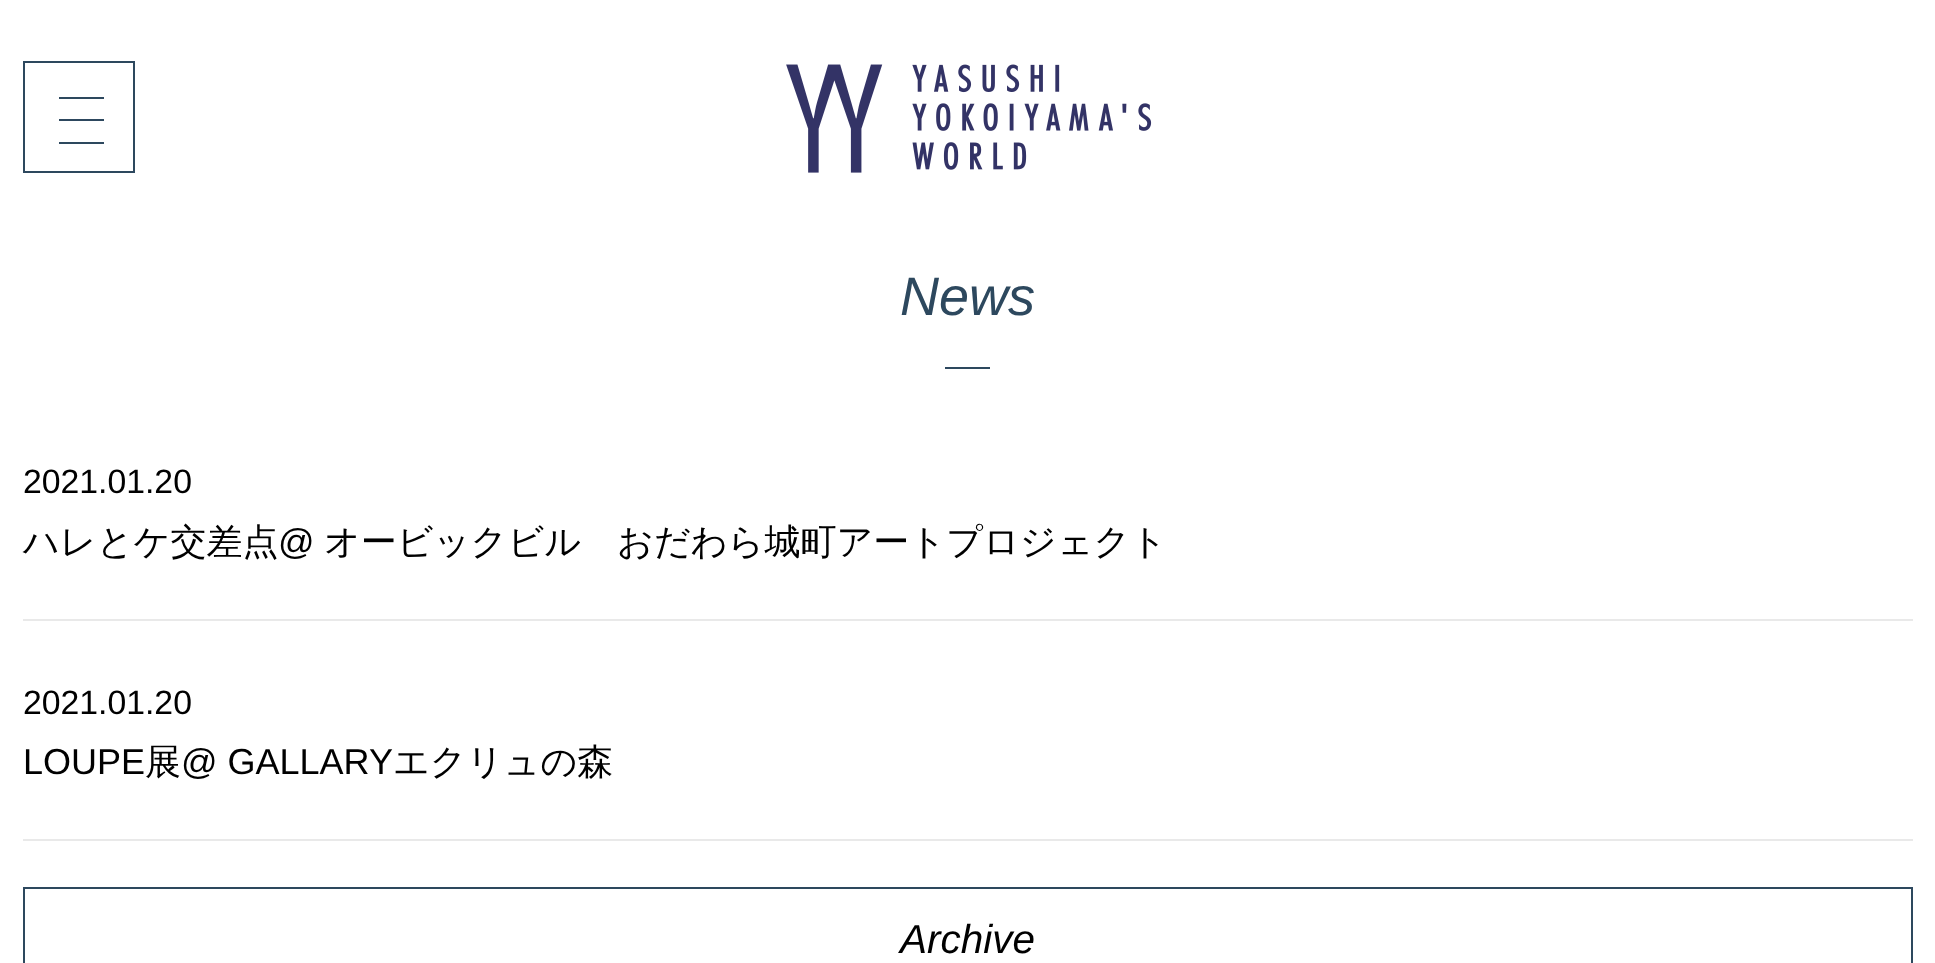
async function draw(canvas) {
	canvas.width = 1935;
	canvas.height = 963;
	const c = canvas.getContext('2d');
	c.miterLimit = 4;
	c.fontKerning = 'normal';
	async function loadImage(src) {
		const img = new Image();
		img.src = src;
		await img.decode();
		return img;
	}

	c.fillStyle = '#fff';
	c.fillRect(0, 0, 1935, 963);
	c.strokeStyle = '#2d485e';
	c.lineWidth = 2;
	c.strokeRect(24, 62, 110, 110);
	for (const [x, y, w, h, color] of [
		[59, 97, 45, 2, '#2d485e'],
		[59, 119, 45, 2, '#2d485e'],
		[59, 142, 45, 2, '#2d485e'],
	]) {
		c.fillStyle = color;
		c.fillRect(x, y, w, h);
	}
	c.drawImage(await loadImage('img1.png'), 786, 64, 366, 109);
	c.font = 'italic 54px Liberation Sans';
	c.fillText('News', 900, 315);
	c.fillRect(945, 367, 45, 2);
	c.fillStyle = '#e9e9e9';
	c.fillRect(23, 619, 1890, 2);
	c.font = '33.75px Liberation Sans';
	c.fillStyle = '#000';
	c.fillText('2021.01.20', 23, 493);
	c.font = '500 36px WenQuanYi Zen Hei';
	c.fillText('ハレとケ交差点', 23, 554);
	c.font = '36px Liberation Sans';
	c.fillText('@', 278, 554);
	c.font = '500 36px WenQuanYi Zen Hei';
	c.fillText('オービックビル　おだわら城町アートプロジェクト', 324, 554);
	c.fillStyle = '#e9e9e9';
	c.fillRect(23, 839, 1890, 2);
	c.font = '33.75px Liberation Sans';
	c.fillStyle = '#000';
	c.fillText('2021.01.20', 23, 714);
	c.font = '36px Liberation Sans';
	c.fillText('LOUPE', 23, 774);
	c.font = '500 36px WenQuanYi Zen Hei';
	c.fillText('展', 145, 774);
	c.font = '36px Liberation Sans';
	c.fillText('@ GALLARY', 181, 774);
	c.font = '500 36px WenQuanYi Zen Hei';
	c.fillText('エクリュの森', 393, 774);
	c.strokeRect(24, 888, 1888, 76);
	c.font = 'italic 40.5px Liberation Sans';
	c.fillText('Archive', 900, 953);
}

draw(document.querySelector('canvas'));
